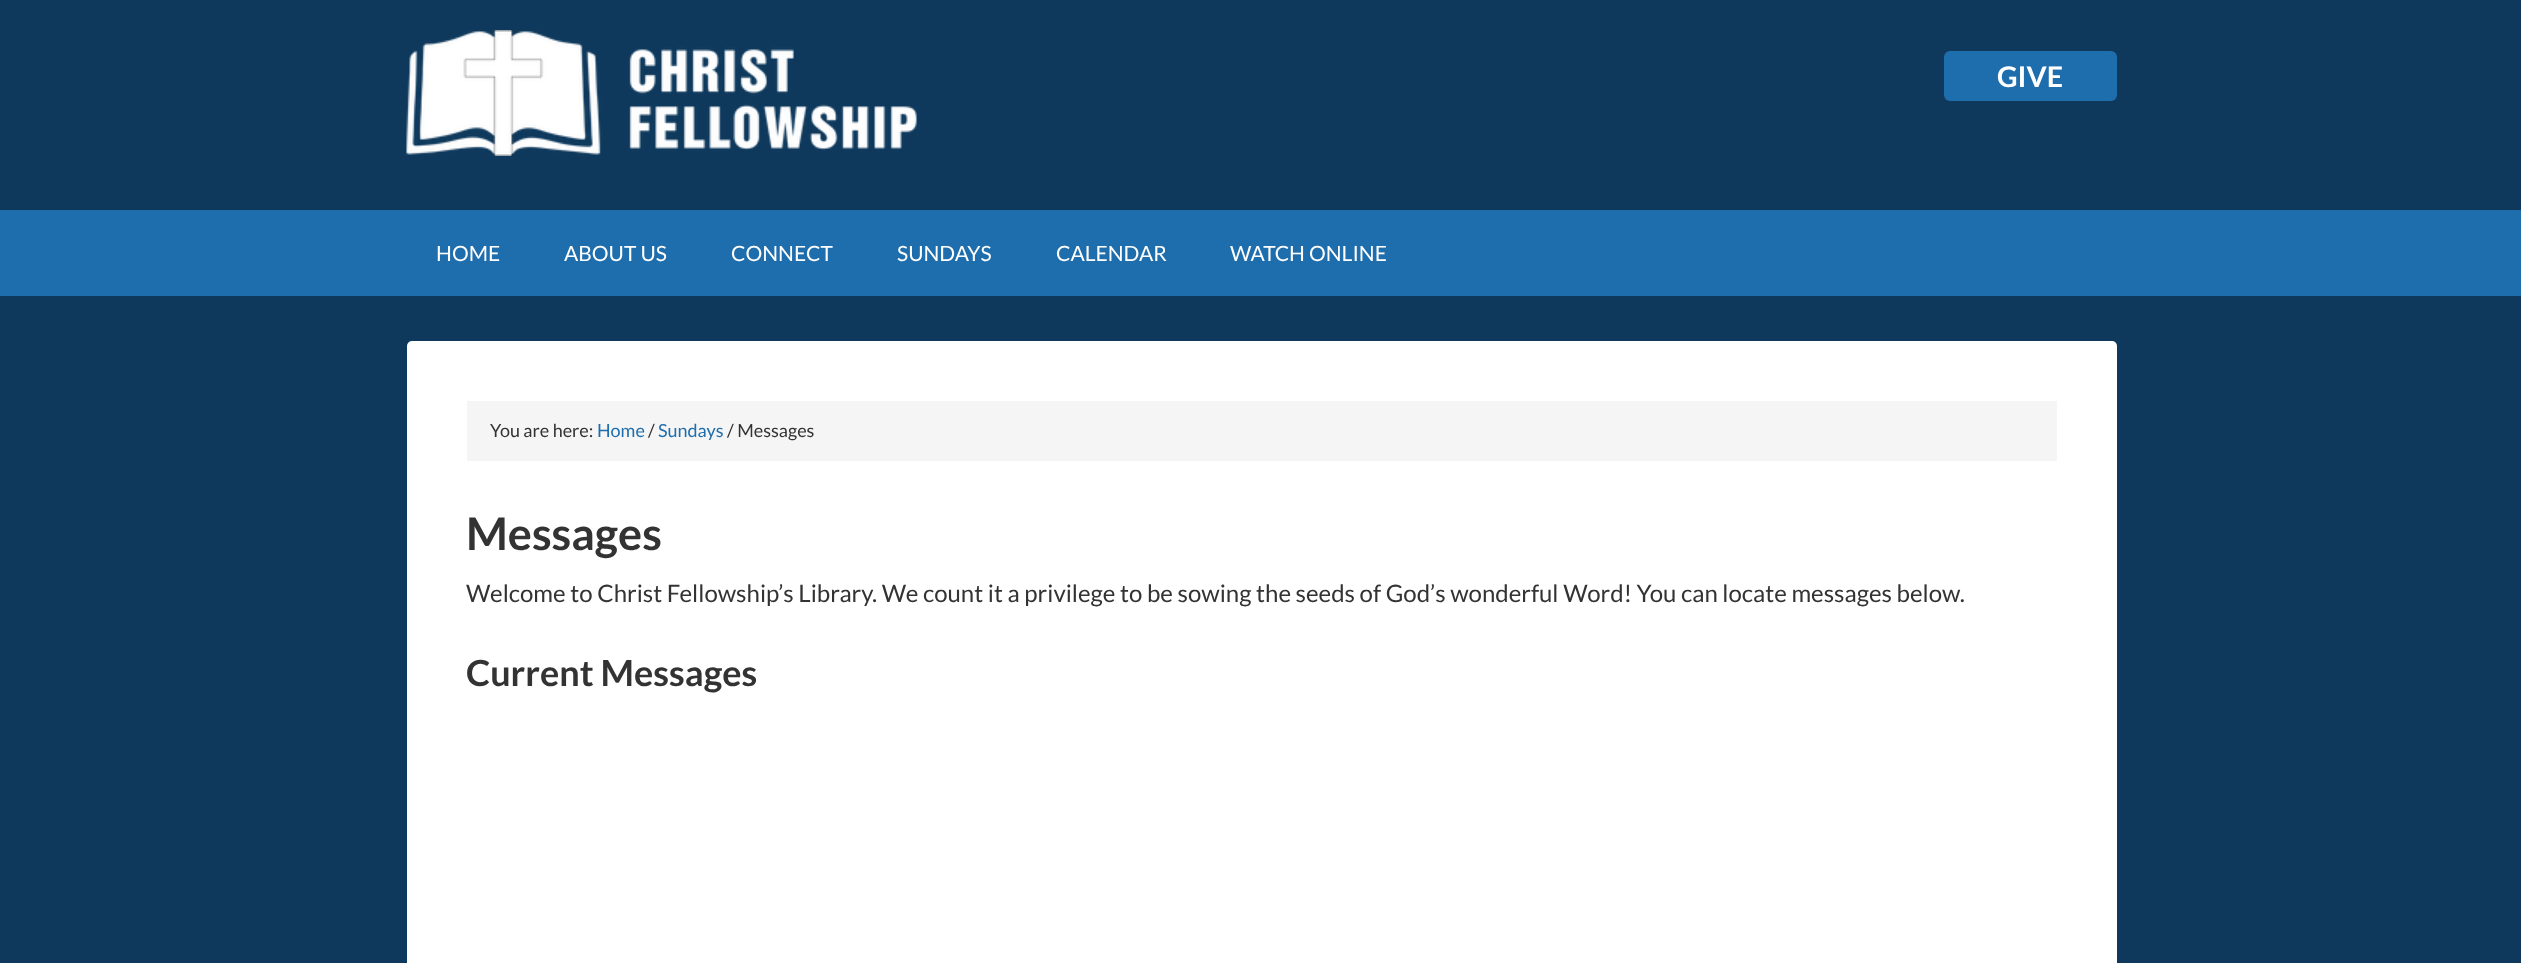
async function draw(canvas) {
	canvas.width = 2521;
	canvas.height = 963;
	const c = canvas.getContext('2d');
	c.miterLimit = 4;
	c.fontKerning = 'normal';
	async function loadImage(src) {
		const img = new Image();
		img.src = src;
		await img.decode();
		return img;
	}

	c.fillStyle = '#0e395c';
	c.fillRect(0, 0, 2521, 963);
	c.drawImage(await loadImage('img1.png'), 406, 30, 511, 126);
	c.fillStyle = '#1e6dad';
	c.beginPath();
	c.roundRect(1944, 51, 173, 50, 6);
	c.fill();
	c.font = 'bold 28.5px Lato';
	c.fillStyle = '#fff';
	c.fillText('GIVE', 1997, 87);
	c.fillStyle = '#1e6dad';
	c.fillRect(0, 210, 2521, 86);
	c.font = '21px Lato';
	c.fillStyle = '#fff';
	for (const [text, x, y] of [
		['HOME', 436, 261],
		['ABOUT US', 564, 261],
		['CONNECT', 731, 261],
		['SUNDAYS', 897, 261],
		['CALENDAR', 1056, 261],
		['WATCH ONLINE', 1230, 261],
	]) {
		c.fillText(text, x, y);
	}
	c.beginPath();
	c.roundRect(407, 341, 1710, 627, 5);
	c.fill();
	c.fillStyle = '#f5f5f5';
	c.fillRect(467, 401, 1590, 60);
	c.font = '18px Lato';
	c.fillStyle = '#333';
	c.fillText('You are here:', 490, 437);
	c.fillStyle = '#1e6dad';
	c.fillText('Home', 597, 437);
	c.fillStyle = '#333';
	c.fillText('/', 648, 437);
	c.fillStyle = '#1e6dad';
	c.fillText('Sundays', 658, 437);
	c.fillStyle = '#333';
	c.fillText('/ Messages', 727, 437);
	c.font = 'bold 45px Lato';
	c.fillText('Messages', 466, 550);
	c.font = '24px Lato';
	c.fillText('Welcome to Christ Fellowship’s Library. We count it a privilege to be sowing the seeds of God’s wonderful Word! You can locate messages below.', 466, 602);
	c.font = 'bold 36px Lato';
	c.fillText('Current Messages', 466, 686);
}

draw(document.querySelector('canvas'));
